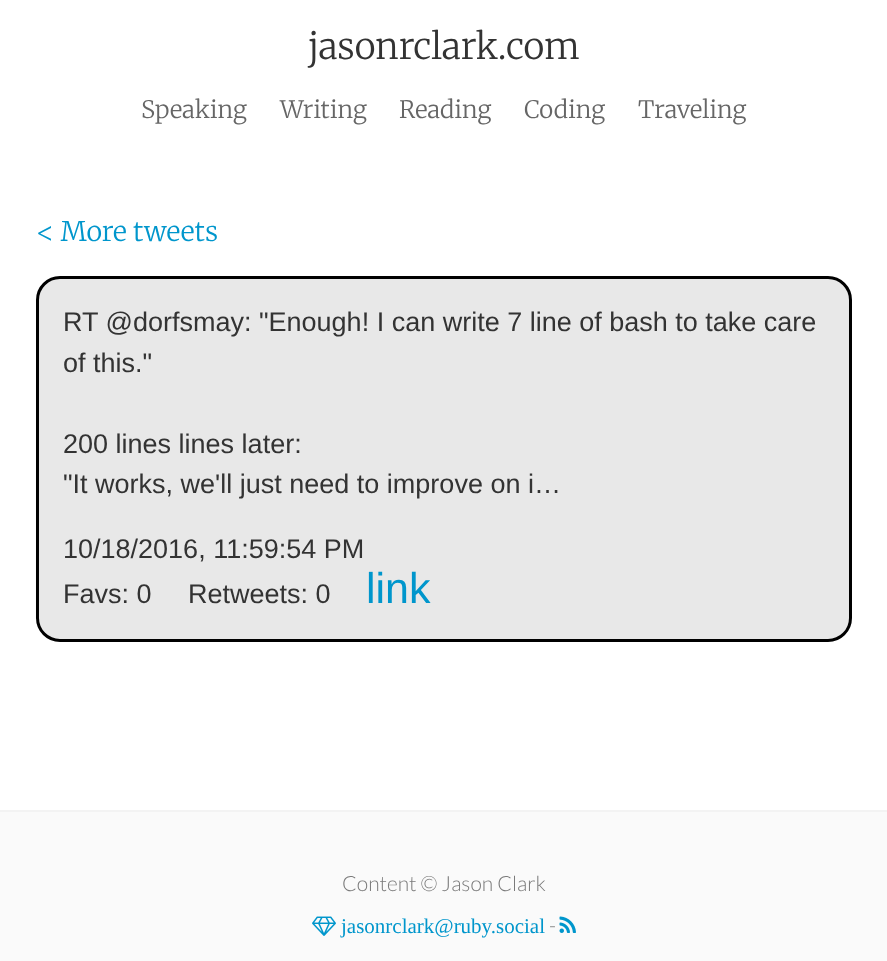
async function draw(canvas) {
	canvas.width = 887;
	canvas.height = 961;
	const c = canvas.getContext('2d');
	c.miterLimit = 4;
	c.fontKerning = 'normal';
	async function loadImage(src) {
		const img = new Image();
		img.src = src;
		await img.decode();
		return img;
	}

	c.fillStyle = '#fff';
	c.fillRect(0, 0, 887, 961);
	c.font = '300 36px Merriweather';
	c.fillStyle = '#333';
	c.fillText('jasonrclark.com', 308, 59);
	c.font = '300 24px Merriweather';
	c.fillStyle = '#666';
	for (const [text, x, y] of [
		['Speaking', 141, 118],
		['Writing', 280, 118],
		['Reading', 399, 118],
		['Coding', 524, 118],
		['Traveling', 638, 118],
	]) {
		c.fillText(text, x, y);
	}
	c.font = '300 27px Merriweather';
	c.fillStyle = '#0096cc';
	c.fillText('< More tweets', 36, 241);
	c.fillStyle = '#e8e8e8';
	c.beginPath();
	c.roundRect(37.5, 277.5, 813, 363, 22.5);
	c.fill();
	c.strokeStyle = '#000';
	c.lineWidth = 3;
	c.stroke();
	c.font = '27px Liberation Sans';
	c.fillStyle = '#333';
	for (const [text, x, y] of [
		['RT @dorfsmay: "Enough! I can write 7 line of bash to take care', 63, 331],
		['of this."', 63, 372],
		['200 lines lines later:', 63, 453],
		['"It works, we\'ll just need to improve on i…', 63, 493],
		['10/18/2016, 11:59:54 PM', 63, 558],
		['Favs: 0', 63, 603],
		['Retweets: 0', 188, 603],
	]) {
		c.fillText(text, x, y);
	}
	c.font = '43px Liberation Sans';
	c.fillStyle = '#0096cc';
	c.fillText('link', 366, 603);
	c.fillStyle = '#fafafa';
	c.fillRect(0, 812, 887, 149);
	c.fillStyle = '#f3f3f3';
	c.fillRect(0, 810, 887, 2);
	c.font = '300 21px Lato';
	c.fillStyle = '#7a7a7a';
	c.fillText('Content © Jason Clark', 342, 891);
	c.drawImage(await loadImage('img1.png'), 312, 916, 24, 20);
	c.font = '21px Liberation Serif';
	c.fillStyle = '#0096cc';
	c.fillText('jasonrclark@ruby.social', 341, 933);
	c.font = '300 21px Lato';
	c.fillStyle = '#7a7a7a';
	c.fillText('-', 549, 933);
	c.drawImage(await loadImage('img2.png'), 559, 916, 17, 17);
}

draw(document.querySelector('canvas'));
